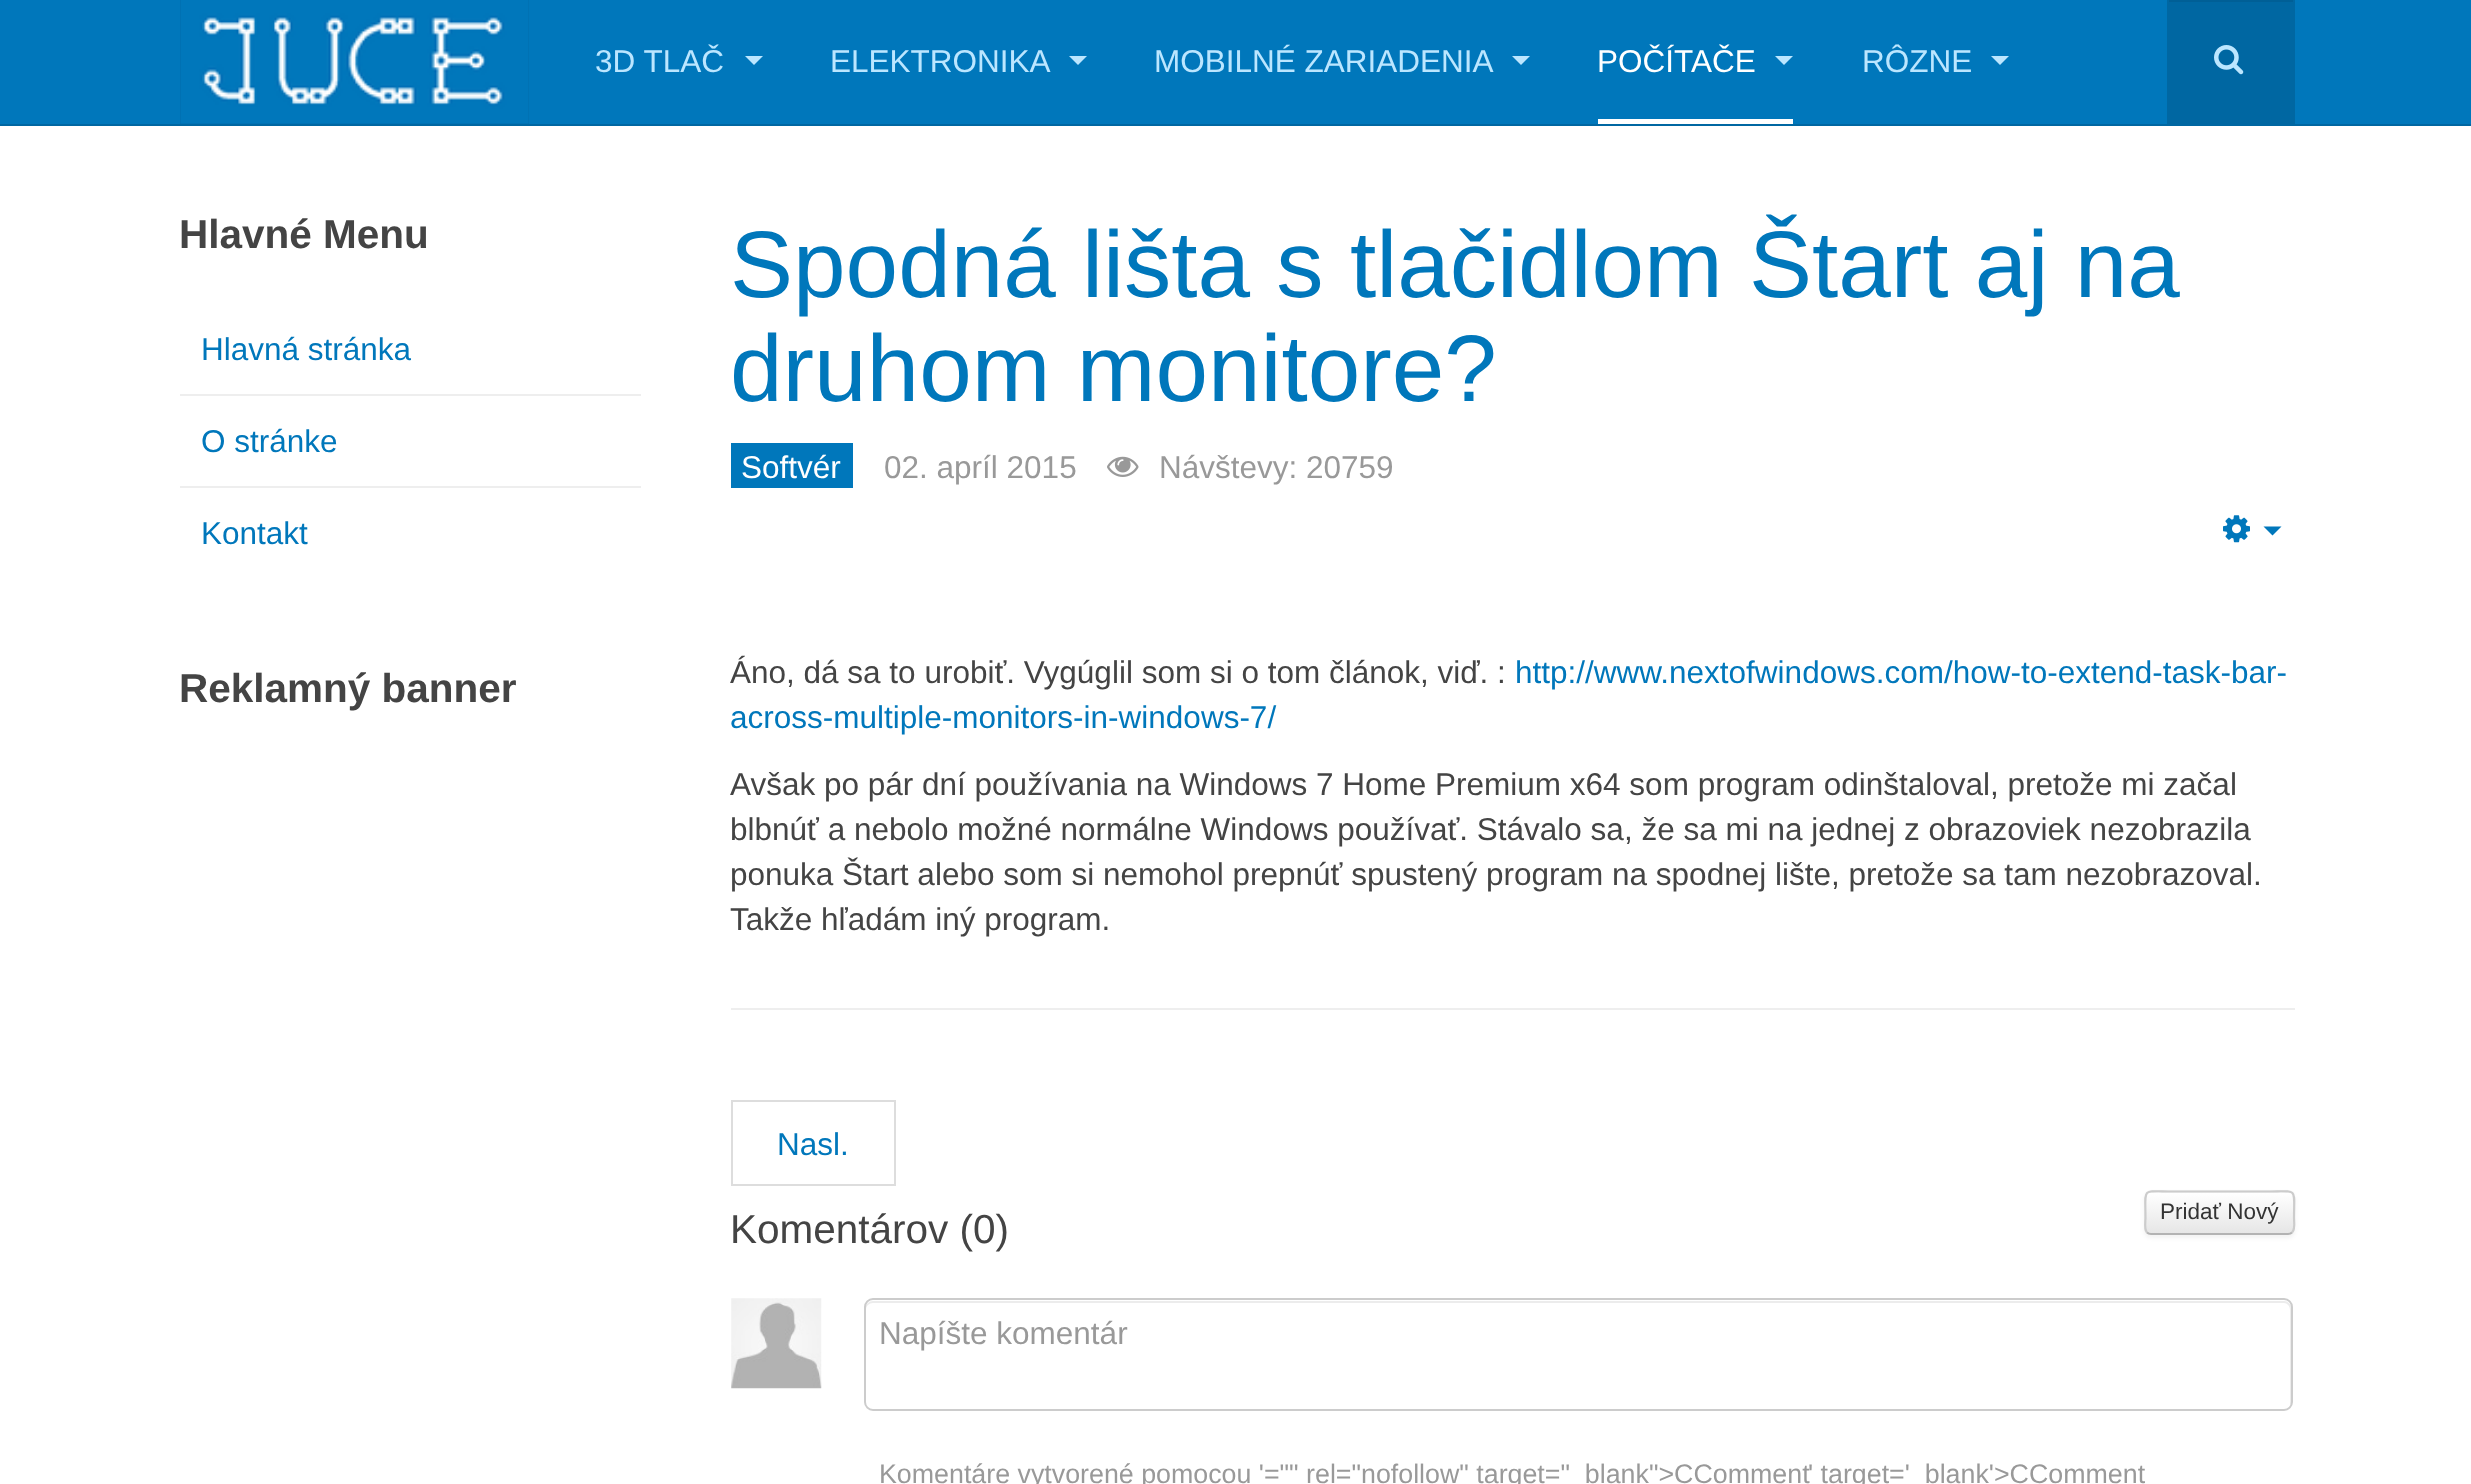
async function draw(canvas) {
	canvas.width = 2471;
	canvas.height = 1484;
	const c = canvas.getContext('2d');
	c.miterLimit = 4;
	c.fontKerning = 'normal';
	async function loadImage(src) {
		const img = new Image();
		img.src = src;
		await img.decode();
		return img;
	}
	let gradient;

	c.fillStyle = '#fff';
	c.fillRect(0, 0, 2471, 1484);
	for (const [x, y, w, h, color] of [
		[0, 0, 2471, 124, '#07b'],
		[0, 124, 2471, 2, '#0067a2'],
		[180, 0, 349, 124, '#0067a2'],
	]) {
		c.fillStyle = color;
		c.fillRect(x, y, w, h);
	}
	c.drawImage(await loadImage('img1.png'), 180, 0, 349, 124);
	c.fillRect(2167, 0, 128, 124);
	c.fillStyle = '#005f96';
	c.fillRect(2169, 0, 124, 2);
	c.drawImage(await loadImage('img2.png'), 2214, 45, 30, 30);
	c.font = '31.5px Liberation Sans';
	c.fillStyle = '#bbe6ff';
	c.fillText('3D TLAČ', 595, 72);
	c.beginPath();
	c.moveTo(745, 56);
	c.lineTo(763, 56);
	c.lineTo(754, 65);
	c.closePath();
	c.fill();
	c.fillText('ELEKTRONIKA', 830, 72);
	c.beginPath();
	c.moveTo(1069, 56);
	c.lineTo(1087, 56);
	c.lineTo(1078, 65);
	c.closePath();
	c.fill();
	c.fillText('MOBILNÉ ZARIADENIA', 1154, 72);
	c.beginPath();
	c.moveTo(1512, 56);
	c.lineTo(1530, 56);
	c.lineTo(1521, 65);
	c.closePath();
	c.fill();
	c.fillStyle = '#fff';
	c.fillRect(1598, 119, 195, 5);
	c.fillText('POČÍTAČE', 1597, 72);
	c.fillStyle = '#bbe6ff';
	c.beginPath();
	c.moveTo(1775, 56);
	c.lineTo(1793, 56);
	c.lineTo(1784, 65);
	c.closePath();
	c.fill();
	c.fillText('RÔZNE', 1862, 72);
	c.beginPath();
	c.moveTo(1991, 56);
	c.lineTo(2009, 56);
	c.lineTo(2000, 65);
	c.closePath();
	c.fill();
	c.font = 'bold 40.5px Liberation Sans';
	c.fillStyle = '#444';
	c.fillText('Hlavné Menu', 179, 248);
	c.font = '31.5px Liberation Sans';
	c.fillStyle = '#07b';
	c.fillText('Hlavná stránka', 201, 360);
	c.fillStyle = '#eee';
	c.fillRect(180, 394, 461, 2);
	c.fillStyle = '#07b';
	c.fillText('O stránke', 201, 452);
	c.fillStyle = '#eee';
	c.fillRect(180, 486, 461, 2);
	c.fillStyle = '#07b';
	c.fillText('Kontakt', 201, 544);
	c.font = 'bold 40.5px Liberation Sans';
	c.fillStyle = '#444';
	c.fillText('Reklamný banner', 179, 702);
	c.font = '94.5px Liberation Sans';
	c.fillStyle = '#07b';
	c.fillText('Spodná lišta s tlačidlom Štart aj na', 730, 297);
	c.fillText('druhom monitore?', 730, 401);
	c.fillRect(731, 443, 122, 45);
	c.font = '31.5px Liberation Sans';
	c.fillStyle = '#fff';
	c.fillText('Softvér', 741, 478);
	c.fillStyle = '#999';
	c.fillText('02. apríl 2015', 884, 478);
	c.drawImage(await loadImage('img3.png'), 1107, 456, 32, 21);
	c.fillText('Návštevy: 20759', 1159, 478);
	c.drawImage(await loadImage('img4.png'), 2223, 515, 27, 28);
	c.fillStyle = '#07b';
	c.beginPath();
	c.moveTo(2263.5, 526.5);
	c.lineTo(2281.5, 526.5);
	c.lineTo(2272.5, 535.5);
	c.closePath();
	c.fill();
	c.fillStyle = '#444';
	c.fillText('Áno, dá sa to urobiť. Vygúglil som si o tom článok, viď. :', 730, 683);
	c.fillStyle = '#07b';
	c.fillText('http://www.nextofwindows.com/how-to-extend-task-bar-', 1515, 683);
	c.fillText('across-multiple-monitors-in-windows-7/', 730, 728);
	c.fillStyle = '#444';
	for (const [text, x, y] of [
		['Avšak po pár dní používania na Windows 7 Home Premium x64 som program odinštaloval, pretože mi začal', 730, 795],
		['blbnúť a nebolo možné normálne Windows používať. Stávalo sa, že sa mi na jednej z obrazoviek nezobrazila', 730, 840],
		['ponuka Štart alebo som si nemohol prepnúť spustený program na spodnej lište, pretože sa tam nezobrazoval.', 730, 885],
		['Takže hľadám iný program.', 730, 930],
	]) {
		c.fillText(text, x, y);
	}
	c.fillStyle = '#eee';
	c.fillRect(731, 1008, 1564, 2);
	c.strokeStyle = '#ddd';
	c.lineWidth = 2;
	c.strokeRect(732, 1101, 163, 84);
	c.fillStyle = '#07b';
	c.fillText('Nasl.', 777, 1155);
	c.font = '40.5px Liberation Sans';
	c.fillStyle = '#444';
	c.fillText('Komentárov (0)', 730, 1243);
	c.fillStyle = '#0000000d';
	c.filter = 'blur(2px)';
	c.beginPath();
	c.roundRect(2144, 1193, 151, 45, 7);
	c.fill();
	c.filter = 'none';
	c.fillStyle = '#f5f5f5';
	c.beginPath();
	c.roundRect(2144, 1190, 151, 45, 7);
	c.fill();
	c.save();
	c.beginPath();
	c.roundRect(2144, 1190, 151, 45, 7);
	c.clip();
	gradient = c.createLinearGradient(2220, 1193, 2220, 1233);
	gradient.addColorStop(0, '#fff');
	gradient.addColorStop(1, '#e6e6e6');
	c.fillStyle = gradient;
	c.fillRect(2144, 1193, 151, 40);
	c.restore();
	c.beginPath();
	c.moveTo(2292, 1232.5);
	c.bezierCurveTo(2291, 1233.5, 2289.5, 1234, 2288, 1234);
	c.lineTo(2151, 1234);
	c.bezierCurveTo(2149.5, 1234, 2148, 1233.5, 2147, 1232.5);
	c.strokeStyle = '#b3b3b3';
	c.lineWidth = 2.2;
	c.stroke();
	c.beginPath();
	c.moveTo(2147, 1232.5);
	c.bezierCurveTo(2144, 1229, 2145.5, 1221.5, 2145.5, 1218);
	c.bezierCurveTo(2145.5, 1186.5, 2140.5, 1191.5, 2174, 1191.5);
	c.lineTo(2265.5, 1191.5);
	c.bezierCurveTo(2299, 1191.5, 2294, 1186.5, 2294, 1218);
	c.bezierCurveTo(2294, 1221.5, 2295.5, 1229, 2292, 1232.5);
	c.strokeStyle = '#ccc';
	c.stroke();
	c.font = '22.5px Liberation Sans';
	c.fillStyle = '#333';
	c.fillText('Pridať Nový', 2160, 1219);
	c.drawImage(await loadImage('img5.png'), 731, 1298, 91, 91);
	c.fillStyle = '#ececec';
	c.beginPath();
	c.moveTo(873, 1303);
	c.lineTo(2284, 1303);
	c.bezierCurveTo(2287, 1303, 2290, 1306, 2290, 1310);
	c.lineTo(2290, 1406);
	c.bezierCurveTo(2291, 1405, 2291, 1403, 2291, 1402);
	c.lineTo(2291, 1308);
	c.bezierCurveTo(2291, 1304, 2288, 1301, 2284, 1301);
	c.lineTo(873, 1301);
	c.bezierCurveTo(869, 1301, 866, 1304, 866, 1308);
	c.lineTo(866, 1310);
	c.bezierCurveTo(866, 1306, 869, 1303, 873, 1303);
	c.closePath();
	c.fill();
	c.beginPath();
	c.roundRect(865, 1299, 1427, 111, 8);
	c.lineWidth = 2;
	c.stroke();
	c.font = '31.5px Liberation Sans';
	c.fillStyle = '#999';
	c.fillText('Napíšte komentár', 879, 1344);
	c.font = '26.8px Liberation Sans';
	c.fillText('Komentáre vytvorené pomocou \'="" rel="nofollow" target="_blank">CComment', 879, 1483);
	c.fillText('\' target=\'_blank\'>CComment', 1808, 1483);
}

draw(document.querySelector('canvas'));
